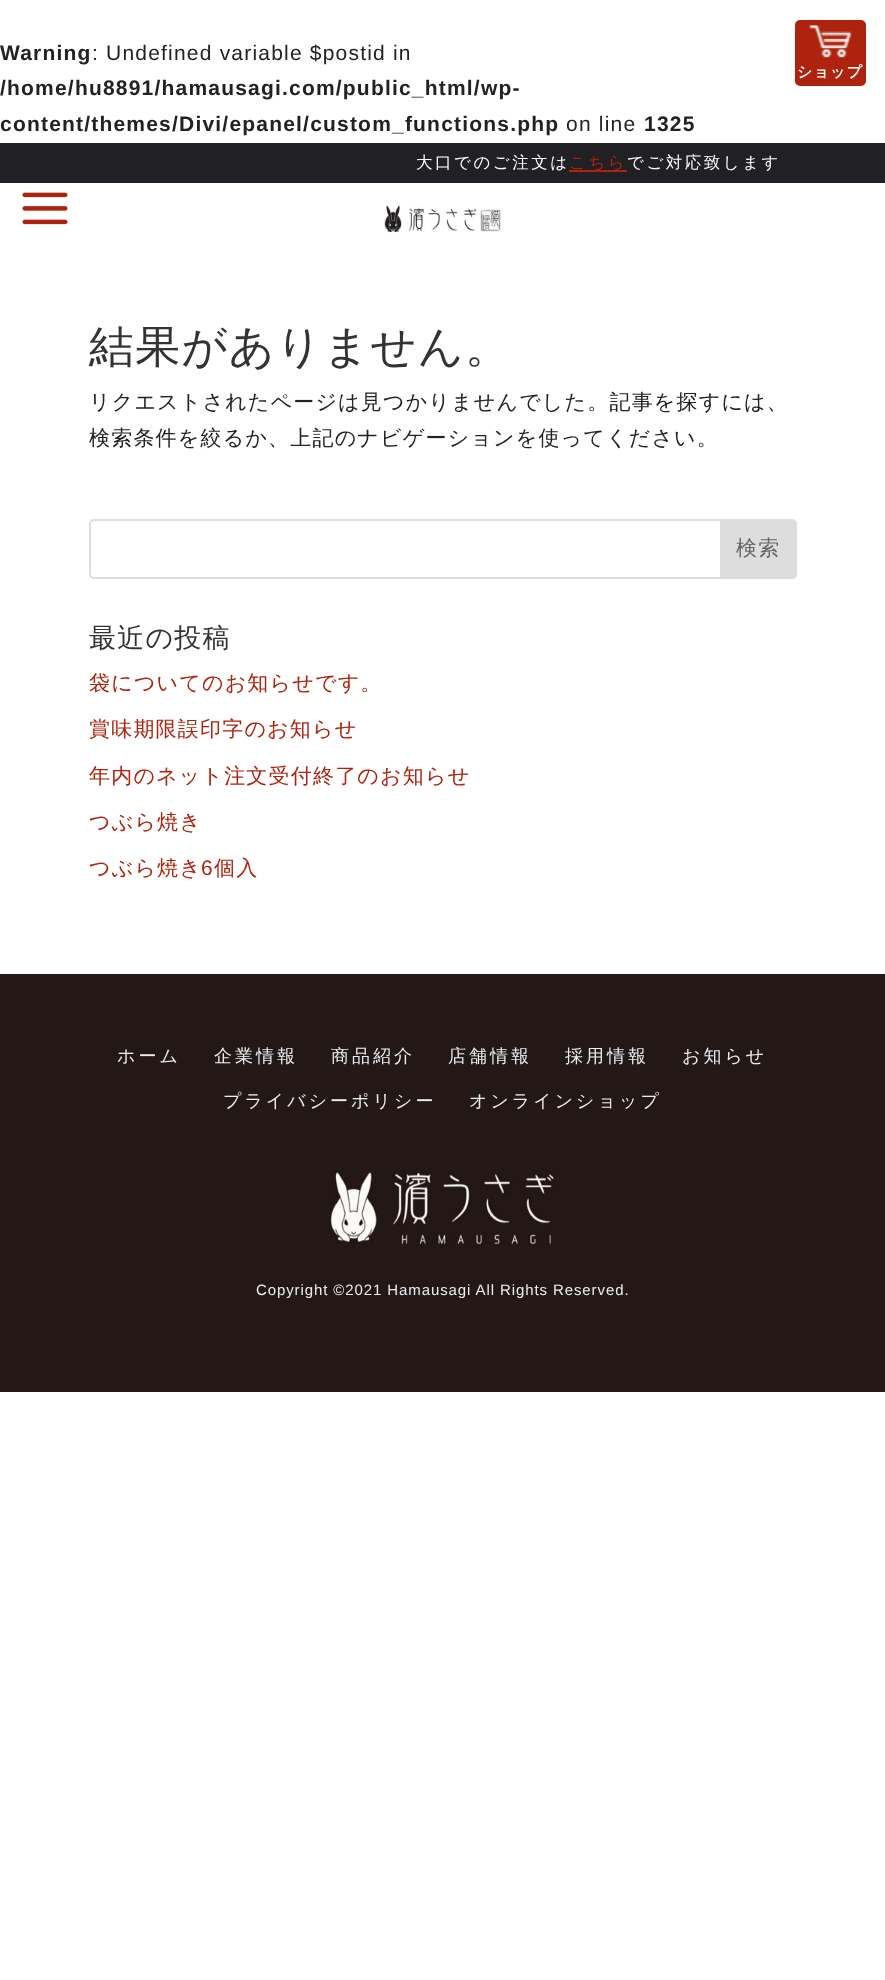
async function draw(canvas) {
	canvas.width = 885;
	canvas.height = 1980;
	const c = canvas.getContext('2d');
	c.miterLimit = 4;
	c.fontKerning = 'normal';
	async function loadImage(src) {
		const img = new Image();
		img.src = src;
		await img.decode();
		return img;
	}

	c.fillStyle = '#fff';
	c.fillRect(0, 0, 885, 1980);
	c.letterSpacing = '1.2px';
	c.font = 'bold 21px Liberation Sans';
	c.fillStyle = '#222';
	c.fillText('Warning', 0, 60);
	c.font = '21px Liberation Sans';
	c.fillText(': Undefined variable $postid in', 92, 60);
	c.fillStyle = '#ae230e';
	c.beginPath();
	c.roundRect(796, 21, 69, 64, 4);
	c.fill();
	c.strokeStyle = '#ae230e';
	c.lineWidth = 2;
	c.stroke();
	c.drawImage(await loadImage('img1.png'), 809, 25, 43, 33);
	c.font = 'bold 15px WenQuanYi Zen Hei';
	c.fillStyle = '#fff';
	c.fillText('ショップ', 797, 77);
	c.drawImage(await loadImage('img2.png'), 22, 192, 46, 33);
	c.drawImage(await loadImage('img3.png'), 384, 205, 117, 28);
	c.fillStyle = '#202025';
	c.fillRect(0, 143, 885, 40);
	c.letterSpacing = '2.5px';
	c.font = '500 16.5px WenQuanYi Zen Hei';
	c.fillStyle = '#fff';
	c.fillText('大口でのご注文は', 416, 168);
	c.fillStyle = '#ae230e';
	c.fillRect(569, 170, 58, 2);
	c.fillText('こちら', 569, 168);
	c.fillStyle = '#fff';
	c.fillText('でご対応致します', 627, 168);
	c.letterSpacing = '1.2px';
	c.font = '500 45px WenQuanYi Zen Hei';
	c.fillStyle = '#333';
	c.fillText('結果がありません。', 89, 362);
	c.font = '500 21px WenQuanYi Zen Hei';
	c.fillStyle = '#222';
	c.fillText('リクエストされたページは見つかりませんでした。記事を探すには、', 89, 409);
	c.fillText('検索条件を絞るか、上記のナビゲーションを使ってください。', 89, 445);
	c.beginPath();
	c.roundRect(90, 520, 706, 58, 4);
	c.strokeStyle = '#ddd';
	c.stroke();
	c.fillStyle = '#ddd';
	c.beginPath();
	c.roundRect(721, 520, 75, 58, [0, 4, 4, 0]);
	c.fill();
	c.stroke();
	c.fillStyle = '#666';
	c.fillText('検索', 736, 555);
	c.font = '500 27px WenQuanYi Zen Hei';
	c.fillStyle = '#333';
	c.fillText('最近の投稿', 89, 647);
	c.font = '500 21px WenQuanYi Zen Hei';
	c.fillStyle = '#ae230e';
	for (const [text, x, y] of [
		['袋についてのお知らせです。', 89, 690],
		['賞味期限誤印字のお知らせ', 89, 736],
		['年内のネット注文受付終了のお知らせ', 89, 783],
		['つぶら焼き', 89, 829],
		['つぶら焼き', 89, 875],
	]) {
		c.fillText(text, x, y);
	}
	c.font = '21px Liberation Sans';
	c.fillText('6', 201, 875);
	c.font = '500 21px WenQuanYi Zen Hei';
	c.fillText('個入', 214, 875);
	c.fillStyle = '#231816';
	c.fillRect(0, 974, 885, 418);
	c.letterSpacing = '3px';
	c.font = '500 18px WenQuanYi Zen Hei';
	c.fillStyle = '#eaedf2';
	for (const [text, x, y] of [
		['ホーム', 117, 1062],
		['企業情報', 214, 1062],
		['商品紹介', 331, 1062],
		['店舗情報', 448, 1062],
		['採用情報', 565, 1062],
		['お知らせ', 682, 1062],
		['プライバシーポリシー', 223, 1107],
		['オンラインショップ', 469, 1107],
	]) {
		c.fillText(text, x, y);
	}
	c.drawImage(await loadImage('img4.png'), 330, 1171, 225, 74);
	c.letterSpacing = '0.9px';
	c.font = '15px Liberation Sans';
	c.fillText('Copyright ©2021 Hamausagi All Rights Reserved.', 256, 1295);
	c.letterSpacing = '1.2px';
	c.font = 'bold 21px Liberation Sans';
	c.fillStyle = '#222';
	c.fillText('/home/hu8891/hamausagi.com/public_html/wp-', 0, 95);
	c.fillText('content/themes/Divi/epanel/custom_functions.php', 0, 131);
	c.font = '21px Liberation Sans';
	c.fillText('on line', 566, 131);
	c.font = 'bold 21px Liberation Sans';
	c.fillText('1325', 644, 131);
}

draw(document.querySelector('canvas'));
